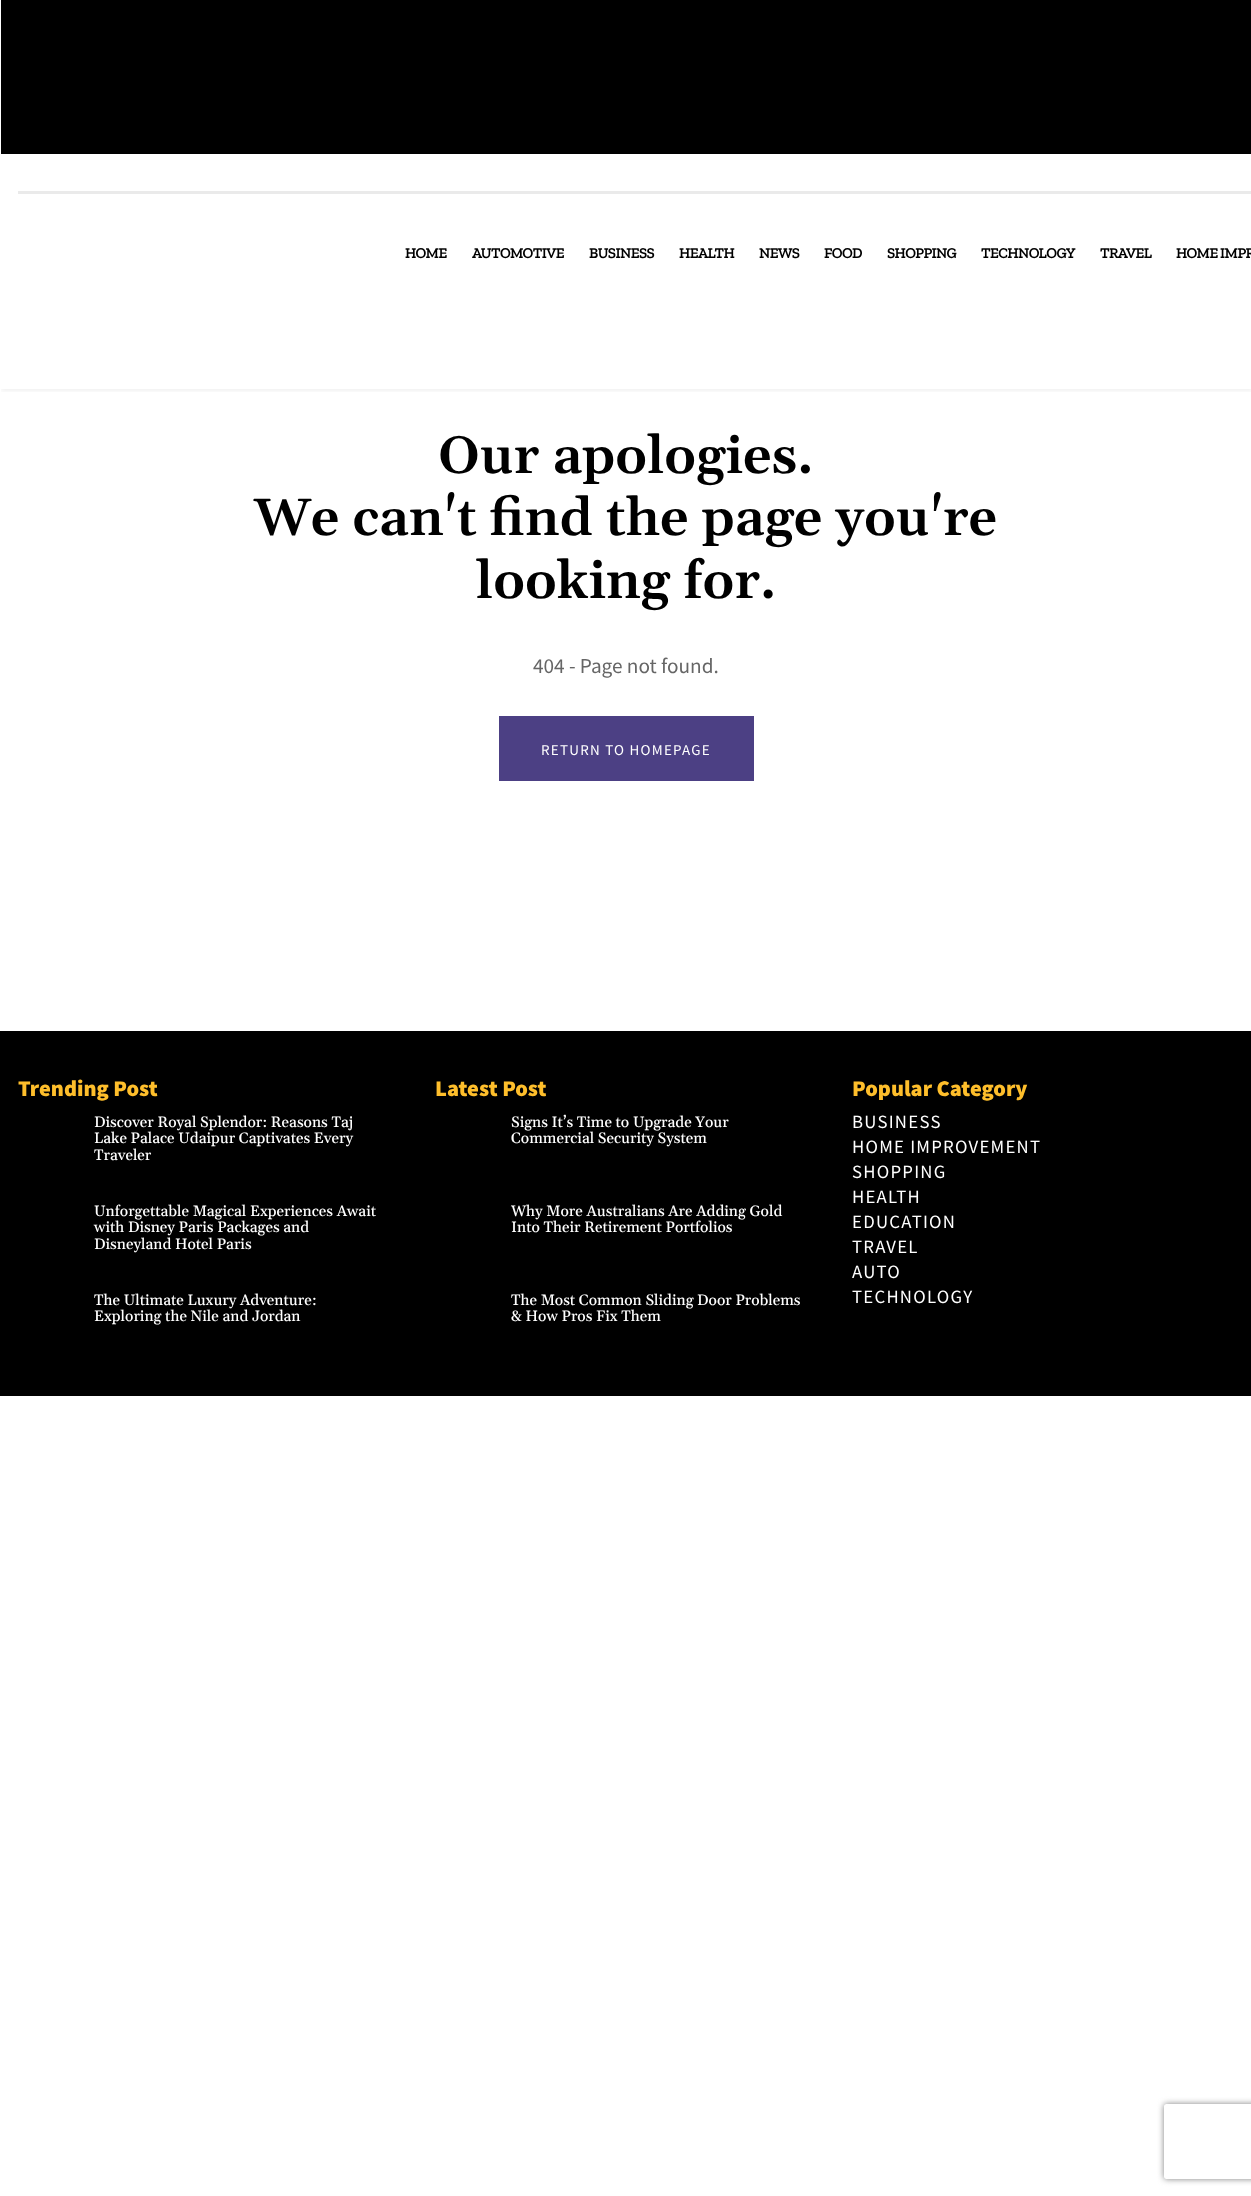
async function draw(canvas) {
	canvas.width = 1251;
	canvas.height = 2196;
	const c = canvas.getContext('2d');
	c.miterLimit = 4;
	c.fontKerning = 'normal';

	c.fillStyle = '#fff';
	c.fillRect(0, 0, 1251, 2196);
	c.fillStyle = '#000';
	c.fillRect(1, 0, 1250, 154);
	c.fillStyle = '#eaeaea';
	c.fillRect(18, 191, 1233, 3);
	c.save();
	c.beginPath();
	c.rect(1, 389, 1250, 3);
	c.clip();
	c.fillStyle = '#0000000f';
	c.filter = 'blur(2.5px)';
	c.beginPath();
	c.rect(1, 156, 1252, 235);
	c.fill();
	c.filter = 'none';
	c.restore();
	c.letterSpacing = '-0.6px';
	c.font = '600 15px Zilla Slab';
	c.fillStyle = '#000';
	for (const [text, x, y] of [
		['HOME', 405, 258],
		['AUTOMOTIVE', 472, 258],
		['BUSINESS', 589, 258],
		['HEALTH', 679, 258],
		['NEWS', 759, 258],
		['FOOD', 824, 258],
		['SHOPPING', 887, 258],
		['TECHNOLOGY', 981, 258],
		['TRAVEL', 1100, 258],
		['HOME IMPR', 1176, 258],
	]) {
		c.fillText(text, x, y);
	}
	c.letterSpacing = '0px';
	c.font = '600 52.5px Gelasio';
	for (const [text, x, y] of [
		['Our apologies.', 438, 473],
		['We can\'t find the page you\'re', 254, 535],
		['looking for.', 476, 598],
	]) {
		c.fillText(text, x, y);
	}
	c.font = '21.25px Source Sans Pro';
	c.fillStyle = '#666';
	c.fillText('404 - Page not found.', 533, 673);
	c.fillStyle = '#4c4084';
	c.fillRect(499, 716, 255, 65);
	c.letterSpacing = '1.25px';
	c.font = '15px Source Sans Pro';
	c.fillStyle = '#fff';
	c.fillText('RETURN TO HOMEPAGE', 541, 755);
	c.fillStyle = '#000';
	c.fillRect(0, 1031, 1251, 365);
	c.letterSpacing = '0px';
	c.font = '900 22.5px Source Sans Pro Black';
	c.fillStyle = '#febe2b';
	c.fillText('Trending Post', 18, 1096);
	c.font = '500 15px Gelasio';
	c.fillStyle = '#fff';
	for (const [text, x, y] of [
		['Discover Royal Splendor: Reasons Taj', 94, 1127],
		['Lake Palace Udaipur Captivates Every', 94, 1143],
		['Traveler', 94, 1160],
		['Unforgettable Magical Experiences Await', 94, 1216],
		['with Disney Paris Packages and', 94, 1232],
		['Disneyland Hotel Paris', 94, 1249],
		['The Ultimate Luxury Adventure:', 94, 1305],
		['Exploring the Nile and Jordan', 94, 1321],
	]) {
		c.fillText(text, x, y);
	}
	c.font = '900 22.5px Source Sans Pro Black';
	c.fillStyle = '#febe2b';
	c.fillText('Latest Post', 435, 1096);
	c.font = '500 15px Gelasio';
	c.fillStyle = '#fff';
	for (const [text, x, y] of [
		['Signs It’s Time to Upgrade Your', 511, 1127],
		['Commercial Security System', 511, 1143],
		['Why More Australians Are Adding Gold', 511, 1216],
		['Into Their Retirement Portfolios', 511, 1232],
		['The Most Common Sliding Door Problems', 511, 1305],
		['& How Pros Fix Them', 511, 1321],
	]) {
		c.fillText(text, x, y);
	}
	c.font = '900 22.5px Source Sans Pro Black';
	c.fillStyle = '#febe2b';
	c.fillText('Popular Category', 852, 1096);
	c.letterSpacing = '1.25px';
	c.font = '18.75px Source Sans Pro';
	c.fillStyle = '#fff';
	for (const [text, x, y] of [
		['BUSINESS', 852, 1128],
		['HOME IMPROVEMENT', 852, 1153],
		['SHOPPING', 852, 1178],
		['HEALTH', 852, 1203],
		['EDUCATION', 852, 1228],
		['TRAVEL', 852, 1253],
		['AUTO', 852, 1278],
		['TECHNOLOGY', 852, 1303],
	]) {
		c.fillText(text, x, y);
	}
	c.save();
	c.beginPath();
	c.moveTo(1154, 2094);
	c.lineTo(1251, 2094);
	c.lineTo(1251, 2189);
	c.lineTo(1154, 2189);
	c.closePath();
	c.moveTo(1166.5, 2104);
	c.lineTo(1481.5, 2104);
	c.bezierCurveTo(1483, 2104, 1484, 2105, 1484, 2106.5);
	c.lineTo(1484, 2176.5);
	c.bezierCurveTo(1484, 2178, 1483, 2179, 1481.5, 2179);
	c.lineTo(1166.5, 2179);
	c.bezierCurveTo(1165, 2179, 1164, 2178, 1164, 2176.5);
	c.lineTo(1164, 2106.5);
	c.bezierCurveTo(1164, 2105, 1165, 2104, 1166.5, 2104);
	c.closePath();
	c.clip('evenodd');
	c.fillStyle = '#808080';
	c.filter = 'blur(3px)';
	c.beginPath();
	c.roundRect(1164, 2104, 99, 75, 2.5);
	c.fill();
	c.filter = 'none';
	c.restore();
}

draw(document.querySelector('canvas'));
